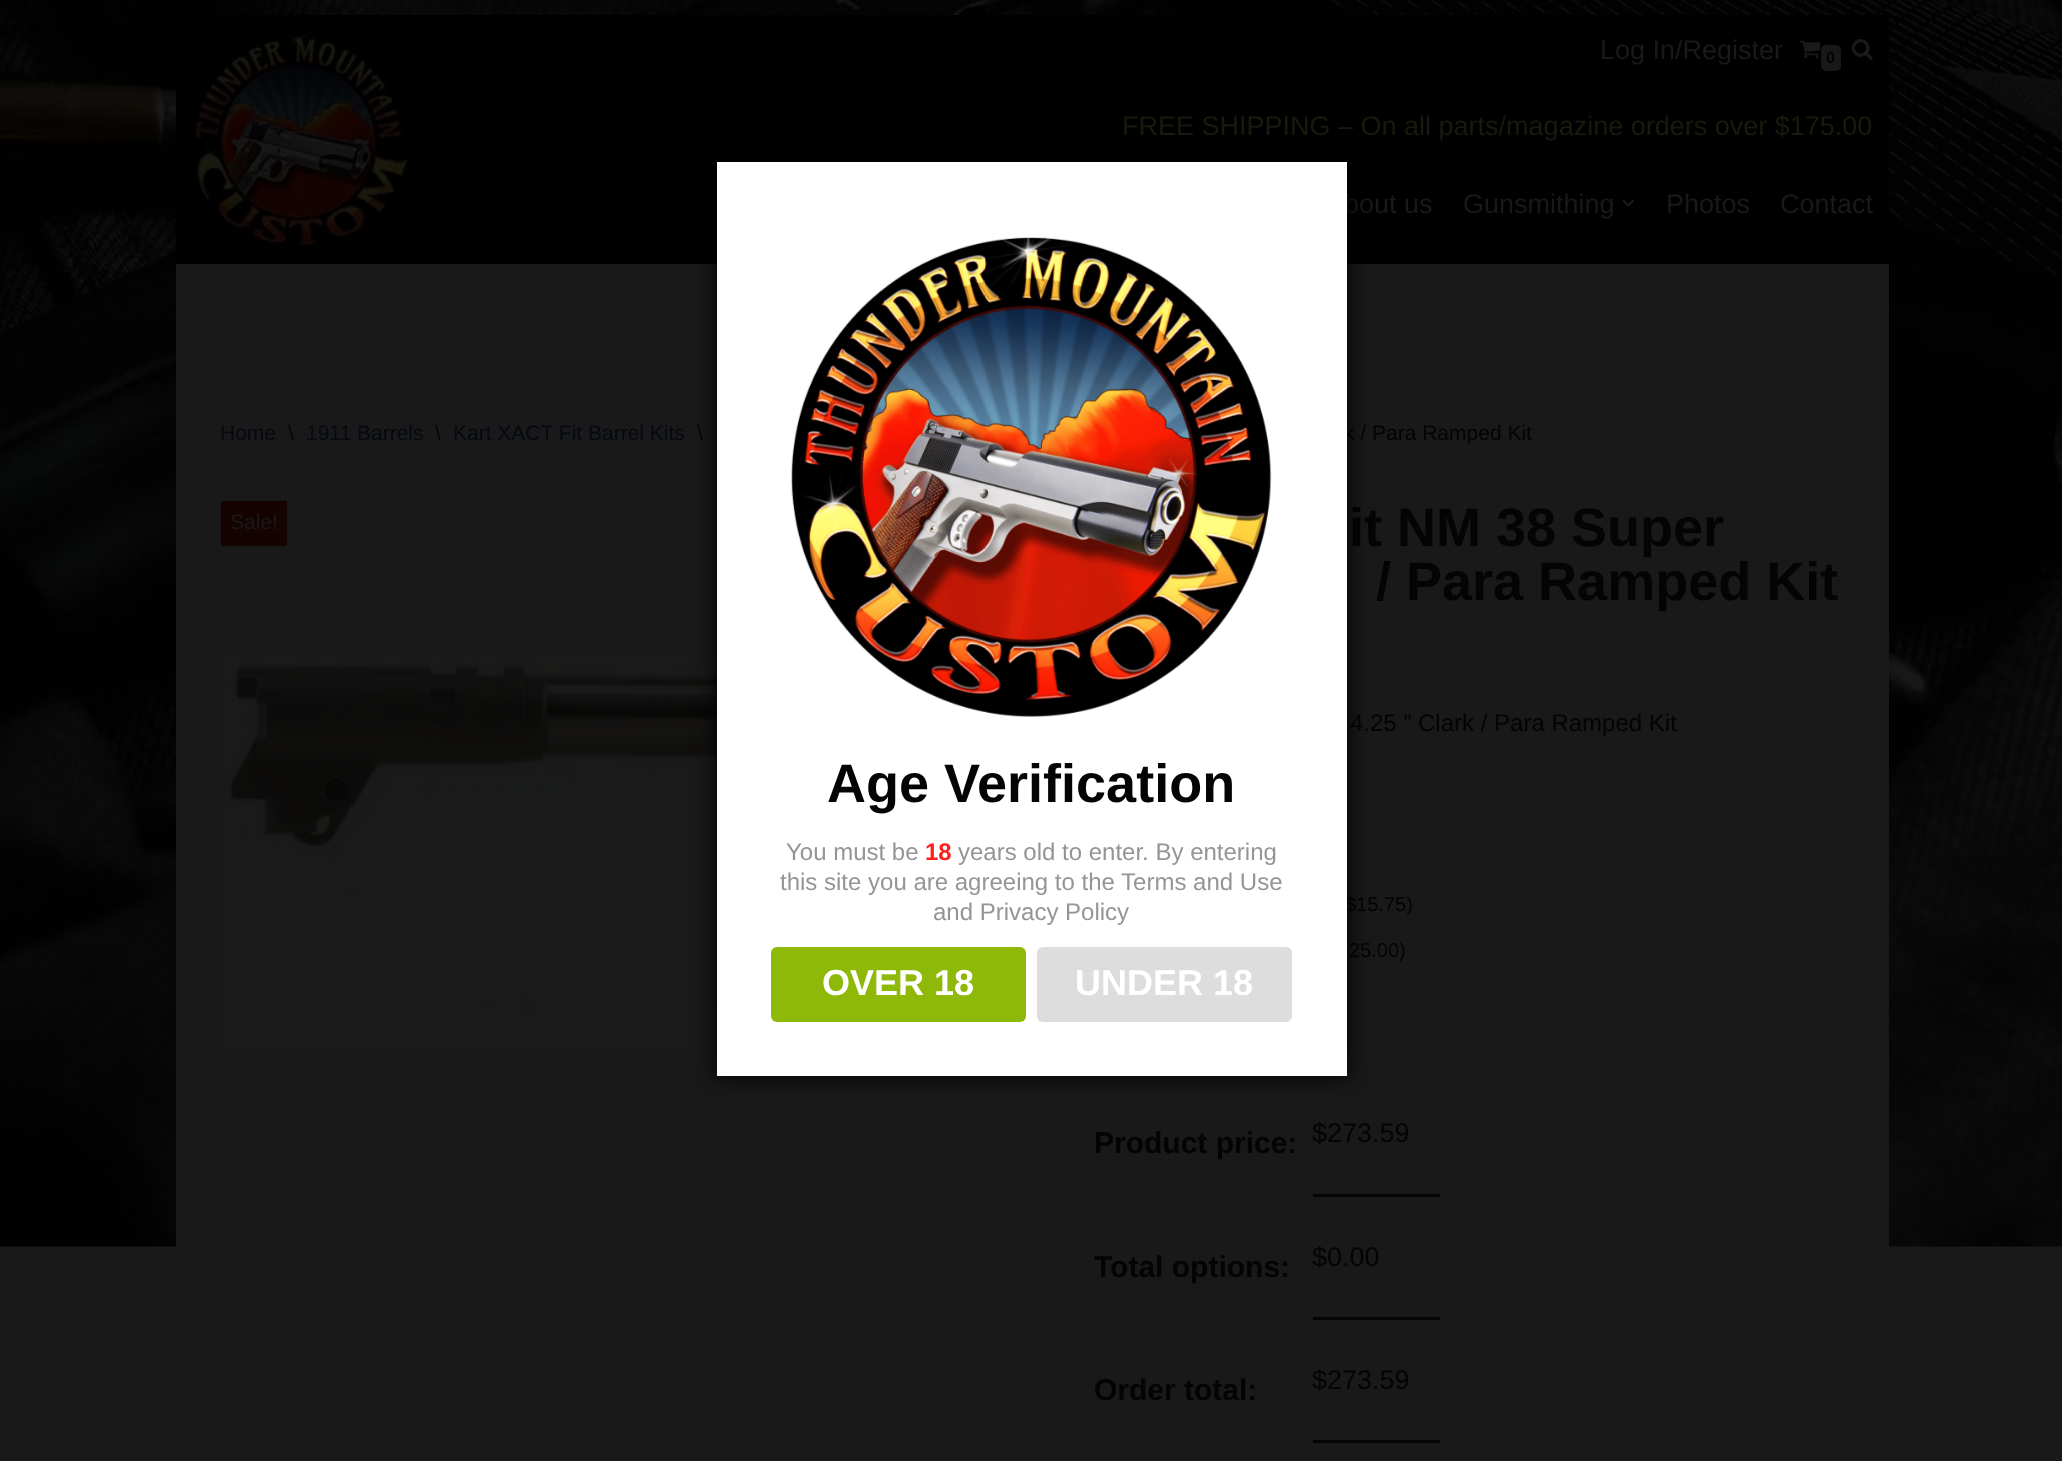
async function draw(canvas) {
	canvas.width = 2062;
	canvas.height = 1461;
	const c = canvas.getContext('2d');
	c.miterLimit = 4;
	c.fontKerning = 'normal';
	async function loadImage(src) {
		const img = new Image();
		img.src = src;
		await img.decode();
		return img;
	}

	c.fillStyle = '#191919';
	c.fillRect(0, 0, 2062, 1461);
	c.drawImage(await loadImage('img5.png'), 0, 0, 2062, 1247);
	c.fillStyle = '#000';
	c.fillRect(176, 15, 1713, 249);
	c.drawImage(await loadImage('img1.png'), 190, 30, 218, 218);
	c.font = '27px Liberation Sans';
	c.fillStyle = '#191919';
	c.fillText('Log In/Register', 1600, 59);
	c.drawImage(await loadImage('img2.png'), 1799, 40, 22, 19);
	c.fillStyle = '#181819';
	c.beginPath();
	c.roundRect(1821, 45, 20, 26, 5);
	c.fill();
	c.font = 'bold 16px Liberation Sans';
	c.fillStyle = '#040404';
	c.fillText('0', 1826, 63);
	c.drawImage(await loadImage('img3.png'), 1851, 39, 22, 21);
	c.font = '27px Liberation Sans';
	c.fillStyle = '#19190d';
	c.fillText('FREE SHIPPING – On all parts/magazine orders over $175.00', 1122, 135);
	c.fillStyle = '#191919';
	c.fillText('bout us', 1344, 213);
	c.fillText('Gunsmithing', 1463, 213);
	c.drawImage(await loadImage('img4.png'), 1622, 199, 12, 8);
	c.fillText('Photos', 1666, 213);
	c.fillText('Contact', 1780, 213);
	c.fillRect(176, 264, 1713, 983);
	c.font = '21px Liberation Sans';
	c.fillStyle = '#050911';
	c.fillText('Home', 220, 440);
	c.fillStyle = '#040404';
	c.fillText('\\', 288, 440);
	c.fillStyle = '#050911';
	c.fillText('1911 Barrels', 306, 440);
	c.fillStyle = '#040404';
	c.fillText('\\', 435, 440);
	c.fillStyle = '#050911';
	c.fillText('Kart XACT Fit Barrel Kits', 453, 440);
	c.fillStyle = '#040404';
	c.fillText('\\', 697, 440);
	c.fillText('k / Para Ramped Kit', 1344, 440);
	c.fillStyle = '#150301';
	c.fillRect(221, 501, 66, 45);
	c.fillStyle = '#191919';
	c.fillText('Sale!', 230, 529);
	c.drawImage(await loadImage('img6.png'), 221, 656, 496, 397);
	c.font = 'bold 54px Liberation Sans';
	c.fillStyle = '#040404';
	c.fillText('it NM 38 Super', 1349, 546);
	c.fillText('/ Para Ramped Kit', 1376, 600);
	c.font = '24px Liberation Sans';
	c.fillText('4.25 ” Clark / Para Ramped Kit', 1350, 731);
	c.font = '20px Liberation Sans';
	c.fillText('$15.75)', 1345, 911);
	c.fillText('25.00)', 1349, 957);
	c.font = 'bold 30px Liberation Sans';
	c.fillText('Product price:', 1094, 1153);
	c.fillRect(1313, 1194, 127, 3);
	c.font = '27px Liberation Sans';
	c.fillText('$273.59', 1312, 1142);
	c.font = 'bold 30px Liberation Sans';
	c.fillText('Total options:', 1094, 1277);
	c.fillRect(1313, 1317, 127, 3);
	c.font = '27px Liberation Sans';
	c.fillText('$0.00', 1312, 1266);
	c.font = 'bold 30px Liberation Sans';
	c.fillText('Order total:', 1094, 1400);
	c.fillRect(1313, 1440, 127, 3);
	c.font = '27px Liberation Sans';
	c.fillText('$273.59', 1312, 1389);
	c.fillStyle = '#000';
	c.filter = 'blur(11px)';
	c.beginPath();
	c.rect(717, 162, 630, 914);
	c.fill();
	c.filter = 'none';
	c.fillStyle = '#fff';
	c.fillRect(717, 162, 630, 914);
	c.drawImage(await loadImage('img7.png'), 791, 237, 481, 481);
	c.font = 'bold 54px Liberation Sans';
	c.fillStyle = '#040404';
	c.fillText('Age Verification', 827, 802);
	c.font = '24px Liberation Sans';
	c.fillStyle = '#959595';
	c.fillText('You must be', 786, 860);
	c.font = 'bold 24px Liberation Sans';
	c.fillStyle = '#ff1f1f';
	c.fillText('18', 925, 860);
	c.font = '24px Liberation Sans';
	c.fillStyle = '#959595';
	for (const [text, x, y] of [
		['years old to enter. By entering', 958, 860],
		['this site you are agreeing to the Terms and Use', 780, 890],
		['and Privacy Policy', 933, 920],
	]) {
		c.fillText(text, x, y);
	}
	c.fillStyle = '#8eb908';
	c.beginPath();
	c.roundRect(771, 947, 255, 75, 6);
	c.fill();
	c.font = 'bold 36px Liberation Sans';
	c.fillStyle = '#fff';
	c.fillText('OVER 18', 822, 995);
	c.fillStyle = '#ddd';
	c.beginPath();
	c.roundRect(1037, 947, 255, 75, 6);
	c.fill();
	c.fillStyle = '#fff';
	c.fillText('UNDER 18', 1075, 995);
}

draw(document.querySelector('canvas'));
